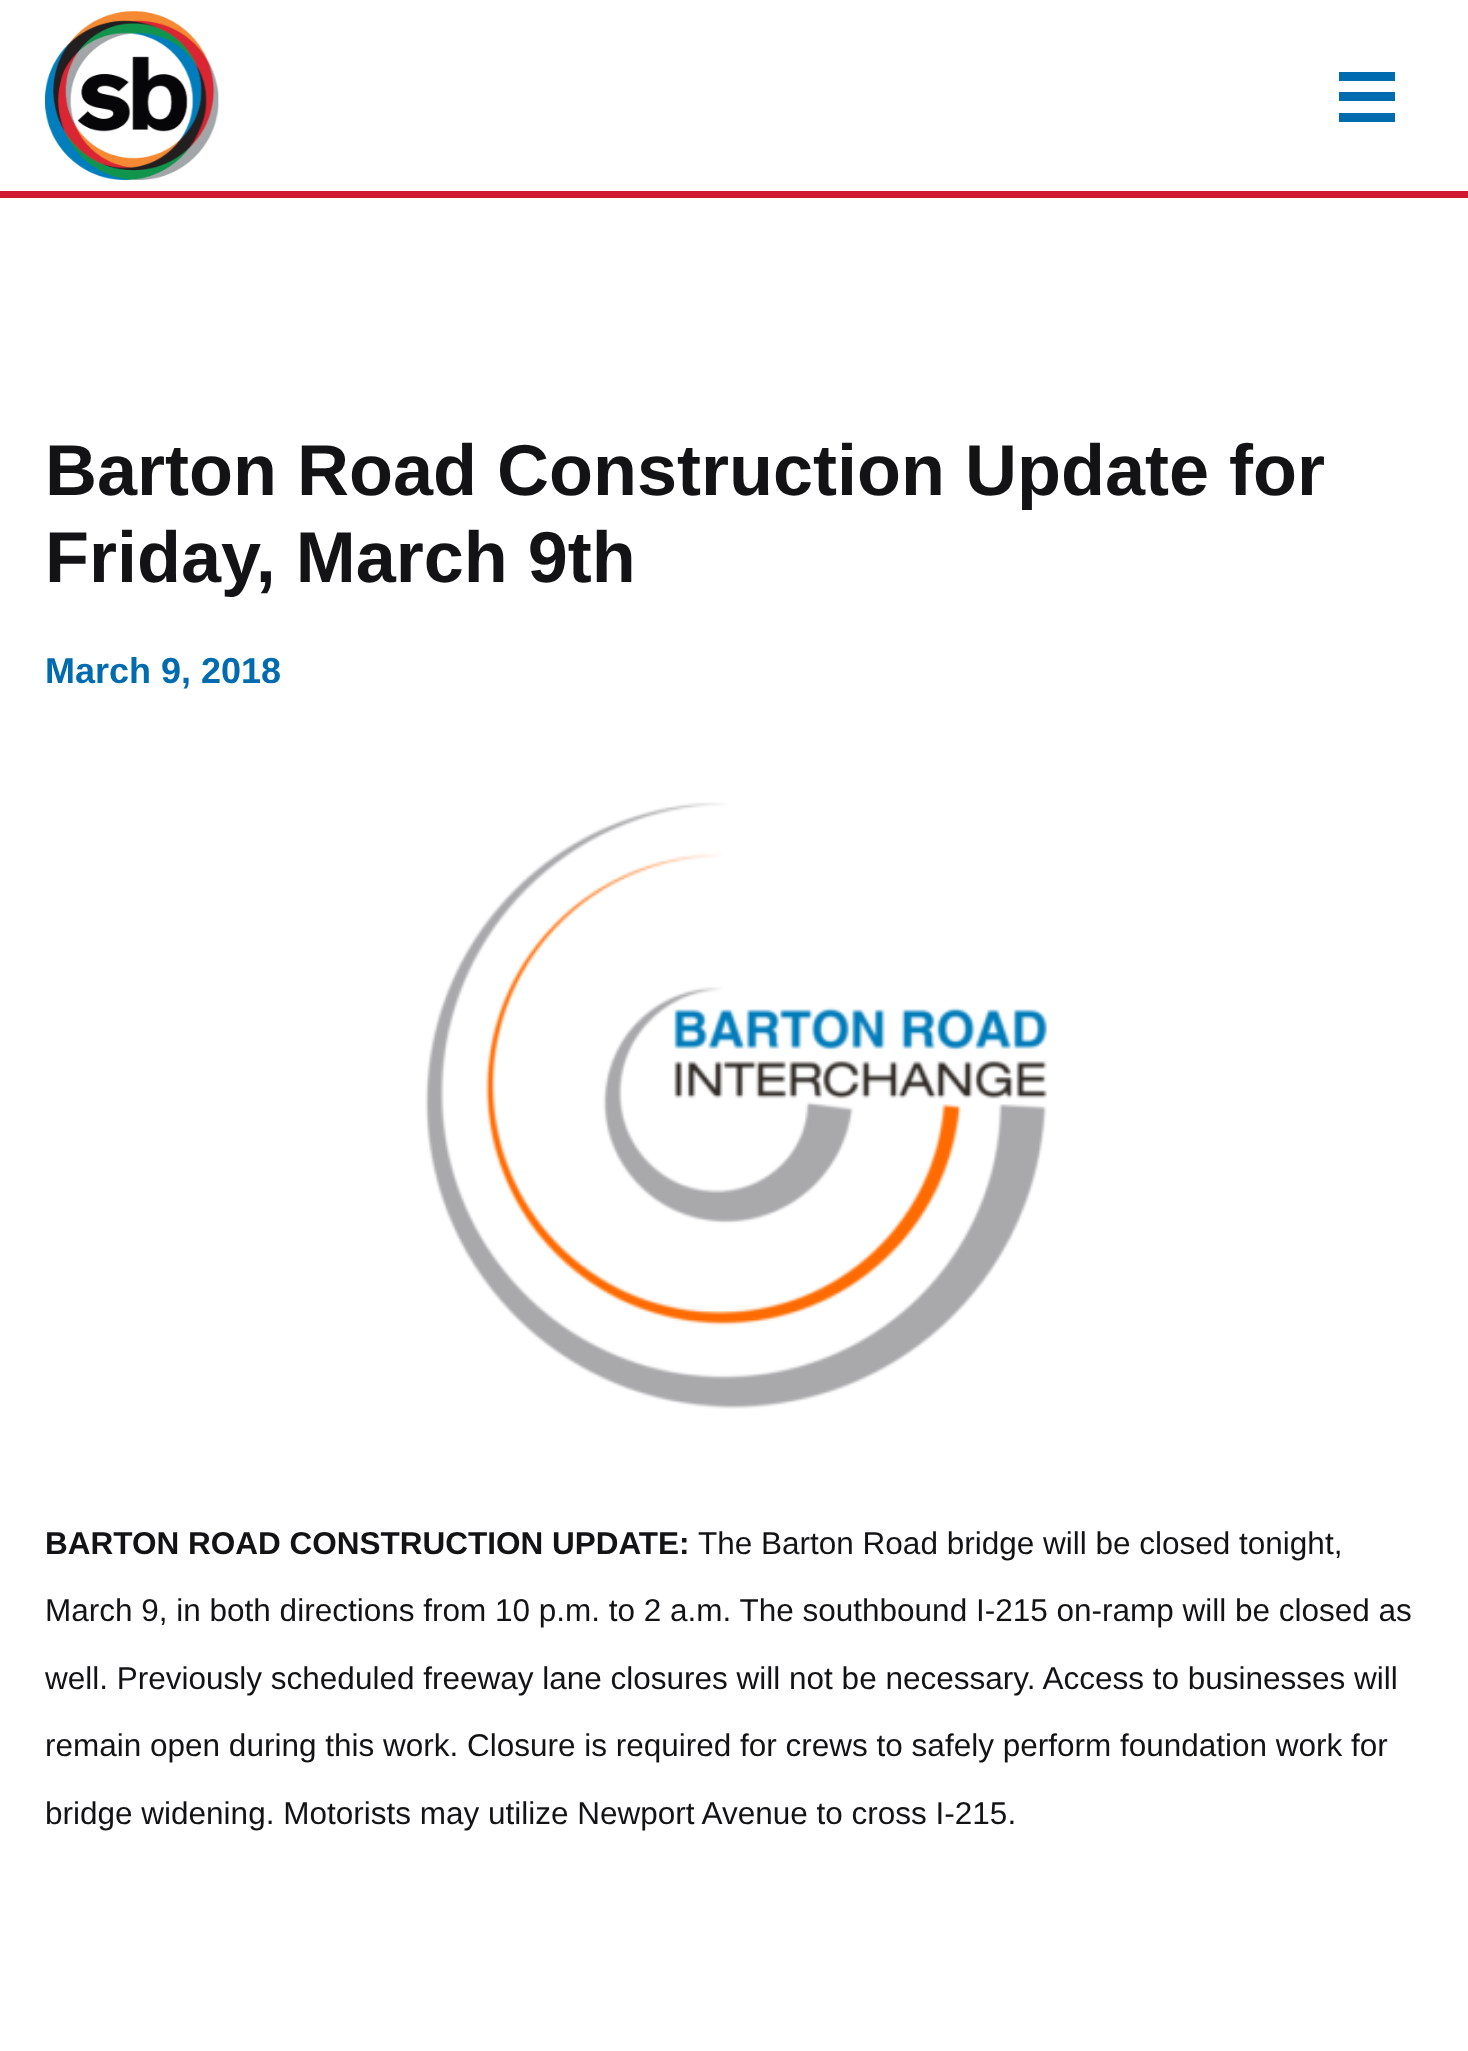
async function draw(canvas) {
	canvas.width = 1468;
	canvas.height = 2051;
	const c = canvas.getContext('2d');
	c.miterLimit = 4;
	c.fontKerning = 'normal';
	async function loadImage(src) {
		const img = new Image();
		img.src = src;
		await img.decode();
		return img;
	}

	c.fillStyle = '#fff';
	c.fillRect(0, 0, 1468, 2051);
	c.fillStyle = '#d0192e';
	c.fillRect(0, 191, 1468, 7);
	c.drawImage(await loadImage('img1.png'), 45, 11, 174, 169);
	for (const [x, y, w, h, color] of [
		[1339, 72, 56, 9, '#006bae'],
		[1339, 92, 56, 9, '#006bae'],
		[1339, 113, 56, 9, '#006bae'],
	]) {
		c.fillStyle = color;
		c.fillRect(x, y, w, h);
	}
	c.font = 'bold 72px Liberation Sans';
	c.fillStyle = '#131215';
	c.fillText('Barton Road Construction Update for', 45, 495);
	c.fillText('Friday, March 9th', 45, 582);
	c.font = 'bold 36px Liberation Sans';
	c.fillStyle = '#006bae';
	c.fillText('March 9, 2018', 45, 683);
	c.drawImage(await loadImage('img2.png'), 425, 802, 623, 607);
	c.font = 'bold 31.5px Liberation Sans';
	c.fillStyle = '#131215';
	c.fillText('BARTON ROAD CONSTRUCTION UPDATE:', 45, 1554);
	c.font = '31.5px Liberation Sans';
	for (const [text, x, y] of [
		['The Barton Road bridge will be closed tonight,', 698, 1554],
		['March 9, in both directions from 10 p.m. to 2 a.m. The southbound I-215 on-ramp will be closed as', 45, 1621],
		['well. Previously scheduled freeway lane closures will not be necessary. Access to businesses will', 45, 1689],
		['remain open during this work. Closure is required for crews to safely perform foundation work for', 45, 1756],
		['bridge widening. Motorists may utilize Newport Avenue to cross I-215.', 45, 1824],
	]) {
		c.fillText(text, x, y);
	}
}

draw(document.querySelector('canvas'));
